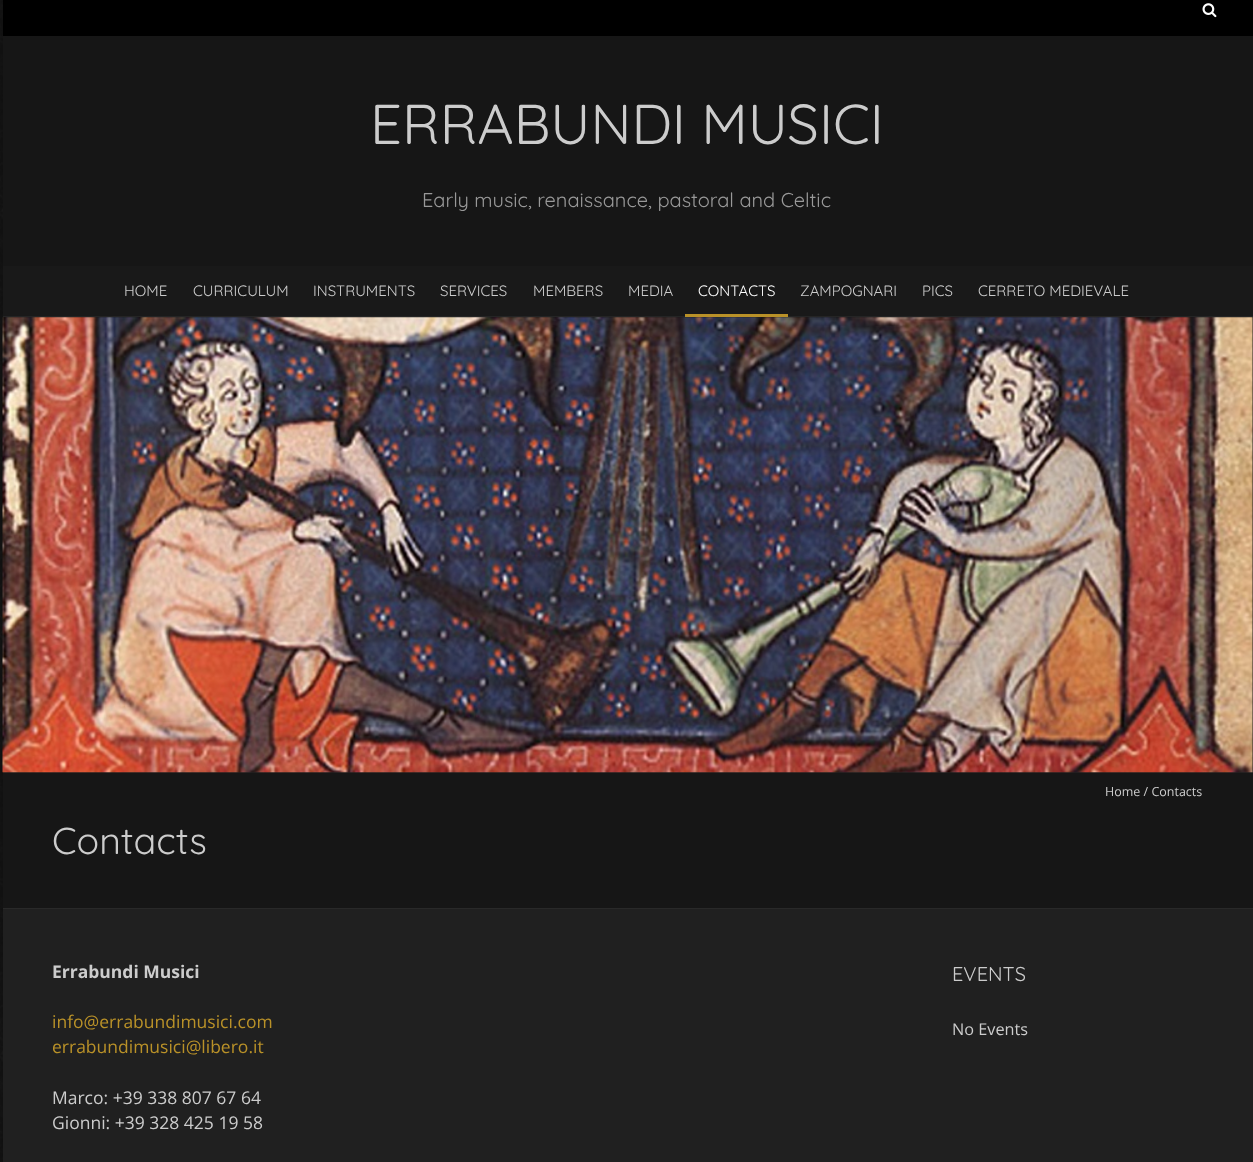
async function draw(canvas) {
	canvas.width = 1253;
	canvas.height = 1162;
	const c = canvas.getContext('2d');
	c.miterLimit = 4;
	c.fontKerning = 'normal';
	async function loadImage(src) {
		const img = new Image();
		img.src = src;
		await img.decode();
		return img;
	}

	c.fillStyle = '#fff';
	c.fillRect(0, 0, 1253, 1162);
	c.drawImage(await loadImage('img1.png'), 0, 0, 3, 1162);
	c.fillStyle = '#202020';
	c.fillRect(3, 318, 1250, 844);
	c.fillStyle = '#000';
	c.fillRect(3, 0, 1250, 36);
	c.drawImage(await loadImage('img2.png'), 1202, 3, 15, 15);
	c.fillStyle = '#161616';
	c.fillRect(3, 36, 1250, 230);
	c.font = '56.25px Quicksand';
	c.fillStyle = '#ccc';
	c.fillText('ERRABUNDI MUSICI', 370, 144);
	c.font = '20px Quicksand';
	c.fillStyle = '#999';
	c.fillText('Early music, renaissance, pastoral and Celtic', 422, 207);
	c.fillStyle = '#191919';
	c.fillRect(3, 266, 1250, 52);
	c.fillStyle = '#252525';
	c.fillRect(3, 316, 1250, 1);
	c.font = '15px Quicksand';
	c.fillStyle = '#ccc';
	for (const [text, x, y] of [
		['HOME', 124, 296],
		['CURRICULUM', 193, 296],
		['INSTRUMENTS', 313, 296],
		['SERVICES', 440, 296],
		['MEMBERS', 533, 296],
		['MEDIA', 628, 296],
	]) {
		c.fillText(text, x, y);
	}
	c.fillStyle = '#b99128';
	c.fillRect(685, 314, 103, 3);
	c.fillStyle = '#fff';
	c.fillText('CONTACTS', 698, 296);
	c.fillStyle = '#ccc';
	for (const [text, x, y] of [
		['ZAMPOGNARI', 800, 296],
		['PICS', 922, 296],
		['CERRETO MEDIEVALE', 978, 296],
	]) {
		c.fillText(text, x, y);
	}
	c.drawImage(await loadImage('img3.png'), 2, 317, 1251, 456);
	c.fillStyle = '#161616';
	c.fillRect(3, 773, 1250, 135);
	c.fillStyle = '#292929';
	c.fillRect(3, 908, 1250, 1);
	c.font = '12.5px Open Sans';
	c.fillStyle = '#ccc';
	c.fillText('Home / Contacts', 1105, 796);
	c.font = '37.5px Quicksand';
	c.fillText('Contacts', 52, 854);
	c.font = 'bold 17.5px Open Sans';
	c.fillText('Errabundi Musici', 52, 978);
	c.font = '17.5px Open Sans';
	c.fillStyle = '#b99128';
	c.fillText('info@errabundimusici.com', 52, 1028);
	c.fillText('errabundimusici@libero.it', 52, 1053);
	c.fillStyle = '#ccc';
	c.fillText('Marco: +39 338 807 67 64', 52, 1104);
	c.fillText('Gionni: +39 328 425 19 58', 52, 1129);
	c.font = '20px Quicksand';
	c.fillText('EVENTS', 952, 981);
	c.font = '16.25px Open Sans';
	c.fillText('No Events', 952, 1035);
}

draw(document.querySelector('canvas'));
